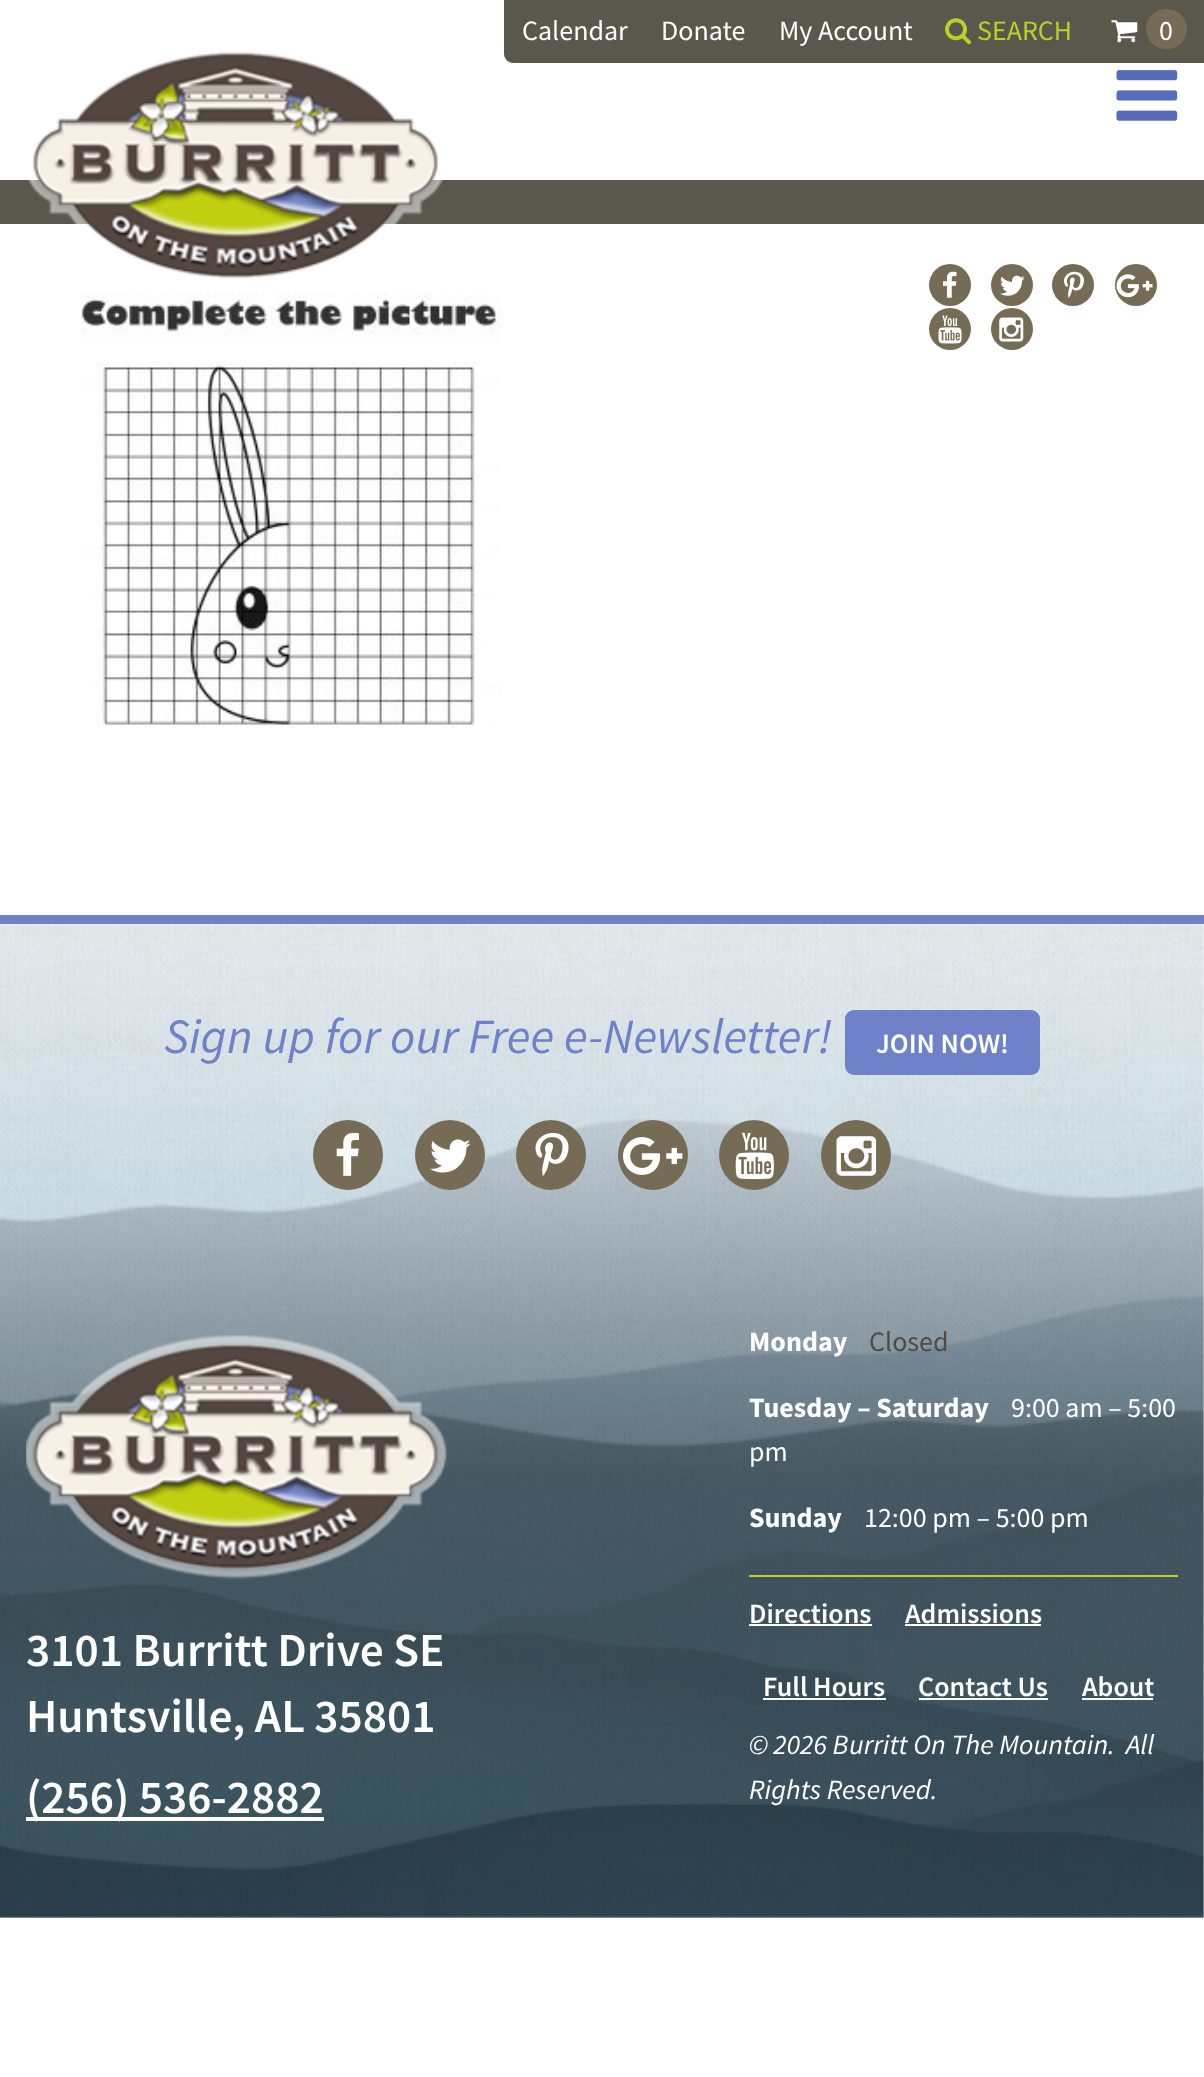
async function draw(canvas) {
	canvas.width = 1204;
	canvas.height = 2077;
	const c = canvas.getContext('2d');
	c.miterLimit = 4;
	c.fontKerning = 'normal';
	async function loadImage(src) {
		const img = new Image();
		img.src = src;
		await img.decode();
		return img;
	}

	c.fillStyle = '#fff';
	c.fillRect(0, 0, 1204, 2077);
	c.fillStyle = '#5a574d';
	c.beginPath();
	c.roundRect(504, 0, 700, 63, [0, 0, 0, 9]);
	c.fill();
	c.font = '28px Source Sans Pro';
	c.fillStyle = '#fff';
	for (const [text, x, y] of [
		['Calendar', 522, 40],
		['Donate', 661, 40],
		['My Account', 779, 40],
	]) {
		c.fillText(text, x, y);
	}
	c.drawImage(await loadImage('img1.png'), 945, 18, 26, 27);
	c.fillStyle = '#b9d229';
	c.fillText('SEARCH', 977, 40);
	c.drawImage(await loadImage('img2.png'), 1111, 20, 27, 23);
	c.fillStyle = '#766c55';
	c.beginPath();
	c.roundRect(1146, 9, 41, 40, 20);
	c.fill();
	c.fillStyle = '#fff';
	c.fillText('0', 1159, 40);
	c.fillStyle = '#5a574d';
	c.fillRect(0, 180, 1204, 44);
	c.drawImage(await loadImage('img3.png'), 27, 52, 417, 227);
	c.drawImage(await loadImage('img4.png'), 1116, 70, 62, 51);
	c.drawImage(await loadImage('img5.png'), 81, 292, 421, 435);
	c.fillStyle = '#766c55';
	c.beginPath();
	c.arc(950, 285, 21, 0, 2 * Math.PI);
	c.fill();
	c.drawImage(await loadImage('img6.png'), 943, 271, 14, 27);
	c.beginPath();
	c.arc(1012, 285, 21, 0, 2 * Math.PI);
	c.fill();
	c.drawImage(await loadImage('img7.png'), 1000, 275, 25, 21);
	c.beginPath();
	c.arc(1073, 285, 21, 0, 2 * Math.PI);
	c.fill();
	c.drawImage(await loadImage('img8.png'), 1064, 271, 20, 27);
	c.beginPath();
	c.arc(1136, 285, 21, 0, 2 * Math.PI);
	c.fill();
	c.drawImage(await loadImage('img9.png'), 1116, 274, 37, 24);
	c.beginPath();
	c.arc(950, 329, 21, 0, 2 * Math.PI);
	c.fill();
	c.drawImage(await loadImage('img10.png'), 938, 315, 24, 29);
	c.beginPath();
	c.arc(1012, 329, 21, 0, 2 * Math.PI);
	c.fill();
	c.drawImage(await loadImage('img11.png'), 999, 317, 25, 25);
	c.drawImage(await loadImage('img12.png'), 0, 924, 1204, 994);
	c.fillStyle = '#6e81c9';
	c.fillRect(0, 915, 1204, 9);
	c.font = 'italic 49.25px Source Sans Pro';
	c.fillText('Sign up for our Free e-Newsletter!', 164, 1053);
	c.beginPath();
	c.roundRect(845, 1010, 195, 65, 9);
	c.fill();
	c.font = '600 28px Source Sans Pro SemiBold';
	c.fillStyle = '#fff';
	c.fillText('JOIN NOW!', 876, 1053);
	c.fillStyle = '#766c55';
	c.beginPath();
	c.arc(348, 1155, 35, 0, 2 * Math.PI);
	c.fill();
	c.drawImage(await loadImage('img13.png'), 336, 1132, 23, 44);
	c.beginPath();
	c.arc(450, 1155, 35, 0, 2 * Math.PI);
	c.fill();
	c.drawImage(await loadImage('img14.png'), 430, 1139, 41, 34);
	c.beginPath();
	c.arc(551, 1155, 35, 0, 2 * Math.PI);
	c.fill();
	c.drawImage(await loadImage('img15.png'), 535, 1132, 34, 44);
	c.beginPath();
	c.arc(653, 1155, 35, 0, 2 * Math.PI);
	c.fill();
	c.drawImage(await loadImage('img16.png'), 623, 1137, 60, 38);
	c.beginPath();
	c.arc(754, 1155, 35, 0, 2 * Math.PI);
	c.fill();
	c.drawImage(await loadImage('img17.png'), 735, 1132, 39, 48);
	c.beginPath();
	c.arc(856, 1155, 35, 0, 2 * Math.PI);
	c.fill();
	c.drawImage(await loadImage('img18.png'), 836, 1136, 41, 40);
	c.drawImage(await loadImage('img19.png'), 26, 1335, 421, 245);
	c.font = '600 47.25px Source Sans Pro SemiBold';
	c.fillStyle = '#fff';
	c.fillText('3101 Burritt Drive SE', 26, 1666);
	c.fillText('Huntsville, AL 35801', 26, 1732);
	c.fillRect(26, 1817, 298, 4);
	c.fillText('(256) 536-2882', 26, 1813);
	c.font = 'bold 28px Source Sans Pro';
	c.fillText('Monday', 749, 1351);
	c.font = '28px Source Sans Pro';
	c.fillStyle = '#544841';
	c.fillText('Closed', 869, 1351);
	c.font = 'bold 28px Source Sans Pro';
	c.fillStyle = '#fff';
	c.fillText('Tuesday – Saturday', 749, 1417);
	c.font = '28px Source Sans Pro';
	c.fillText('9:00 am – 5:00', 1011, 1417);
	c.fillText('pm', 749, 1461);
	c.font = 'bold 28px Source Sans Pro';
	c.fillText('Sunday', 749, 1527);
	c.font = '28px Source Sans Pro';
	c.fillText('12:00 pm – 5:00 pm', 864, 1527);
	c.fillStyle = '#b9d229';
	c.fillRect(749, 1575, 429, 2);
	c.font = '600 28px Source Sans Pro SemiBold';
	c.fillStyle = '#fff';
	c.fillText('Directions', 749, 1623);
	c.fillRect(749, 1624, 123, 2);
	c.fillText('Admissions', 905, 1623);
	c.fillRect(905, 1624, 136, 2);
	c.fillText('Full Hours', 763, 1696);
	c.fillRect(763, 1698, 123, 2);
	c.fillText('Contact Us', 918, 1696);
	c.fillRect(919, 1698, 129, 2);
	c.fillText('About', 1082, 1696);
	c.fillRect(1082, 1698, 71, 2);
	c.font = 'italic 28px Source Sans Pro';
	c.fillText('© 2026 Burritt On The Mountain.  All', 749, 1754);
	c.fillText('Rights Reserved.', 749, 1799);
}

draw(document.querySelector('canvas'));
